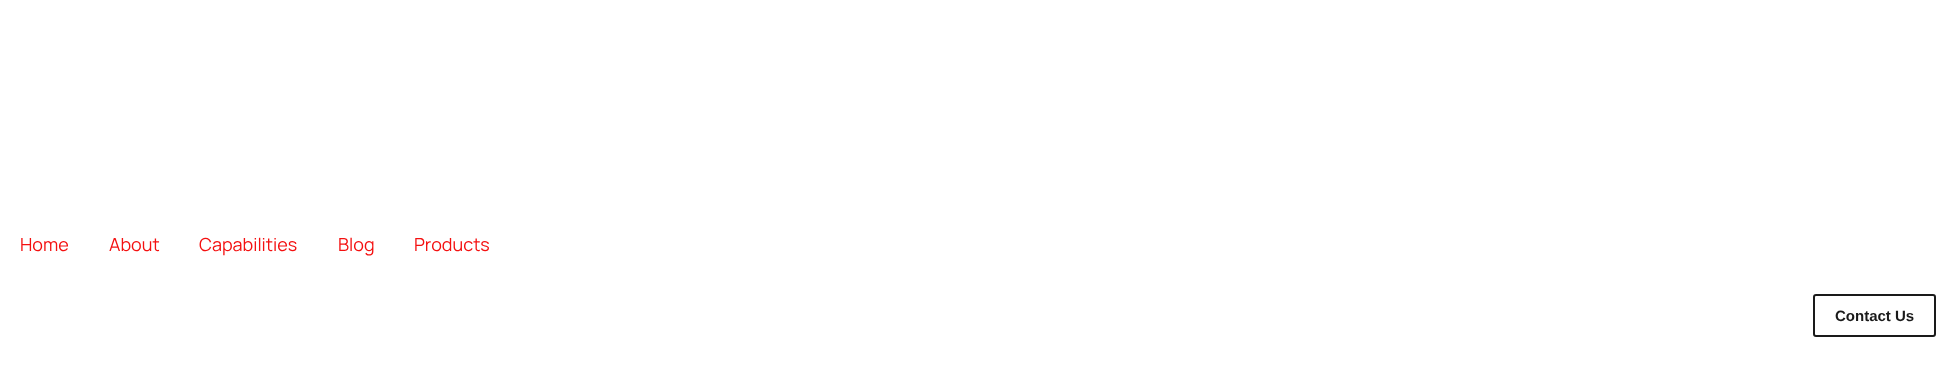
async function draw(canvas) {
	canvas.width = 1936;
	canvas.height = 385;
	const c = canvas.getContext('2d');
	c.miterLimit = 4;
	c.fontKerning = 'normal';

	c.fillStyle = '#fff';
	c.fillRect(0, 0, 1936, 385);
	c.font = '18px Manrope';
	c.fillStyle = '#f41010';
	for (const [text, x, y] of [
		['Home', 20, 251],
		['About', 109, 251],
		['Capabilities', 199, 251],
		['Blog', 338, 251],
		['Products', 414, 251],
	]) {
		c.fillText(text, x, y);
	}
	c.beginPath();
	c.roundRect(1814, 295, 121, 41, 2);
	c.strokeStyle = '#1a1a1a';
	c.lineWidth = 2;
	c.stroke();
	c.font = 'bold 15px Liberation Sans';
	c.fillStyle = '#1a1a1a';
	c.fillText('Contact Us', 1835, 321);
}

draw(document.querySelector('canvas'));
